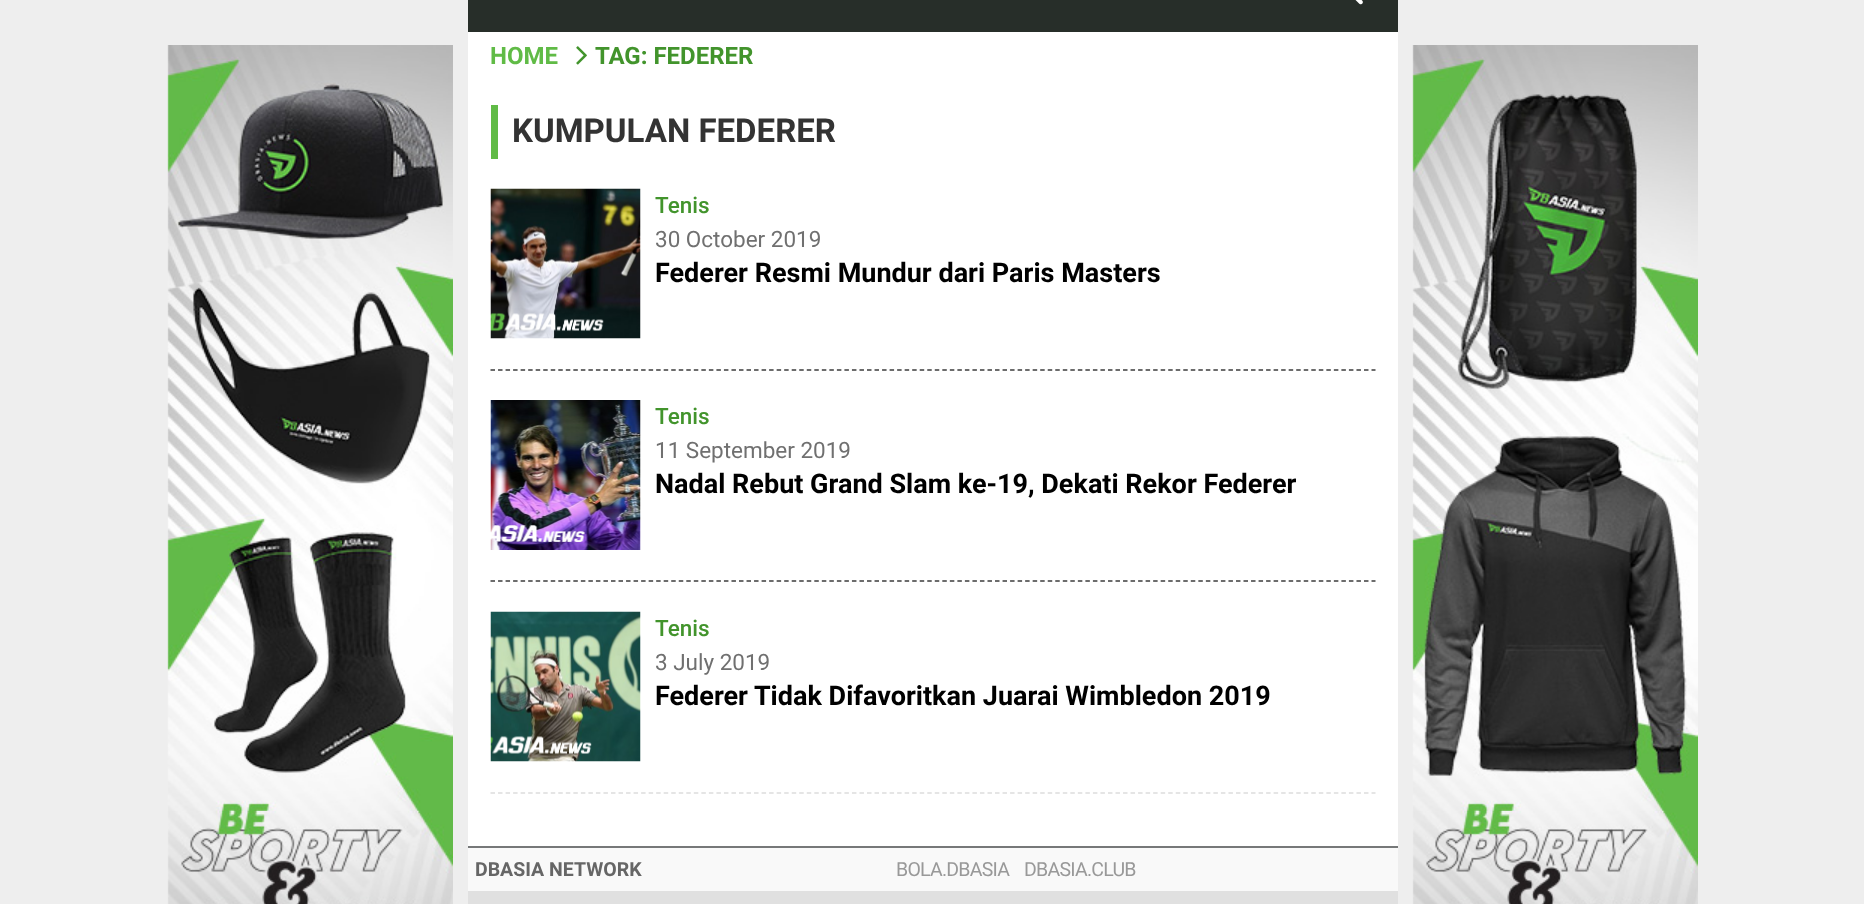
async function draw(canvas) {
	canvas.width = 1864;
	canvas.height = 904;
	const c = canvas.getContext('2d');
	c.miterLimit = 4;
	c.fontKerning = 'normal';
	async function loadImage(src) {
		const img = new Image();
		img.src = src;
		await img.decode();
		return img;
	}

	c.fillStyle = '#eee';
	c.fillRect(0, 0, 1864, 904);
	c.fillStyle = '#fff';
	c.fillRect(468, 32, 930, 814);
	c.fillStyle = '#272e29';
	c.fillRect(468, 0, 930, 32);
	c.drawImage(await loadImage('img1.png'), 1355, 0, 8, 5);
	c.drawImage(await loadImage('img2.png'), 167, 45, 286, 859);
	c.font = 'bold 24px Roboto';
	c.fillStyle = '#60bb46';
	c.fillText('HOME', 490, 64);
	c.drawImage(await loadImage('img3.png'), 576, 46, 11, 19);
	c.fillStyle = '#42942c';
	c.fillText('TAG: FEDERER', 595, 64);
	c.fillStyle = '#60bb46';
	c.fillRect(491, 105, 7, 54);
	c.font = 'bold 33px Roboto';
	c.fillStyle = '#333';
	c.fillText('KUMPULAN FEDERER', 512, 142);
	c.beginPath();
	c.moveTo(490.5, 370);
	c.lineTo(1375.5, 370);
	c.strokeStyle = '#3d3d3d';
	c.lineWidth = 1.5;
	c.setLineDash([4.5, 3.03]);
	c.stroke();
	c.drawImage(await loadImage('img4.png'), 490, 188, 151, 151);
	c.font = '500 22.5px Roboto';
	c.fillStyle = '#42942c';
	c.fillText('Tenis', 655, 213);
	c.font = '22.5px Roboto';
	c.fillStyle = '#707070';
	c.fillText('30 October 2019', 655, 247);
	c.font = 'bold 27px Roboto';
	c.fillStyle = '#000';
	c.fillText('Federer Resmi Mundur dari Paris Masters', 655, 282);
	c.beginPath();
	c.moveTo(490.5, 581);
	c.lineTo(1375.5, 581);
	c.stroke();
	c.drawImage(await loadImage('img5.png'), 490, 400, 151, 150);
	c.font = '500 22.5px Roboto';
	c.fillStyle = '#42942c';
	c.fillText('Tenis', 655, 424);
	c.font = '22.5px Roboto';
	c.fillStyle = '#707070';
	c.fillText('11 September 2019', 655, 458);
	c.font = 'bold 27px Roboto';
	c.fillStyle = '#000';
	c.fillText('Nadal Rebut Grand Slam ke-19, Dekati Rekor Federer', 655, 493);
	c.drawImage(await loadImage('img6.png'), 490, 611, 151, 151);
	c.font = '500 22.5px Roboto';
	c.fillStyle = '#42942c';
	c.fillText('Tenis', 655, 636);
	c.font = '22.5px Roboto';
	c.fillStyle = '#707070';
	c.fillText('3 July 2019', 655, 670);
	c.font = 'bold 27px Roboto';
	c.fillStyle = '#000';
	c.fillText('Federer Tidak Difavoritkan Juarai Wimbledon 2019', 655, 705);
	c.beginPath();
	c.moveTo(490.5, 793);
	c.lineTo(1375.5, 793);
	c.strokeStyle = '#ddd';
	c.stroke();
	c.drawImage(await loadImage('img7.png'), 1412, 45, 286, 859);
	for (const [x, y, w, h, color] of [
		[468, 891, 930, 13, '#e0e0e0'],
		[468, 846, 930, 2, '#767879'],
		[468, 848, 930, 43, '#f9f9f9'],
	]) {
		c.fillStyle = color;
		c.fillRect(x, y, w, h);
	}
	c.font = 'bold 19.5px Roboto';
	c.fillStyle = '#666';
	c.fillText('DBASIA NETWORK', 475, 876);
	c.letterSpacing = '-0.75px';
	c.font = '19.5px Roboto';
	c.fillStyle = '#999';
	c.fillText('BOLA.DBASIA', 896, 876);
	c.fillText('DBASIA.CLUB', 1024, 876);
}

draw(document.querySelector('canvas'));
